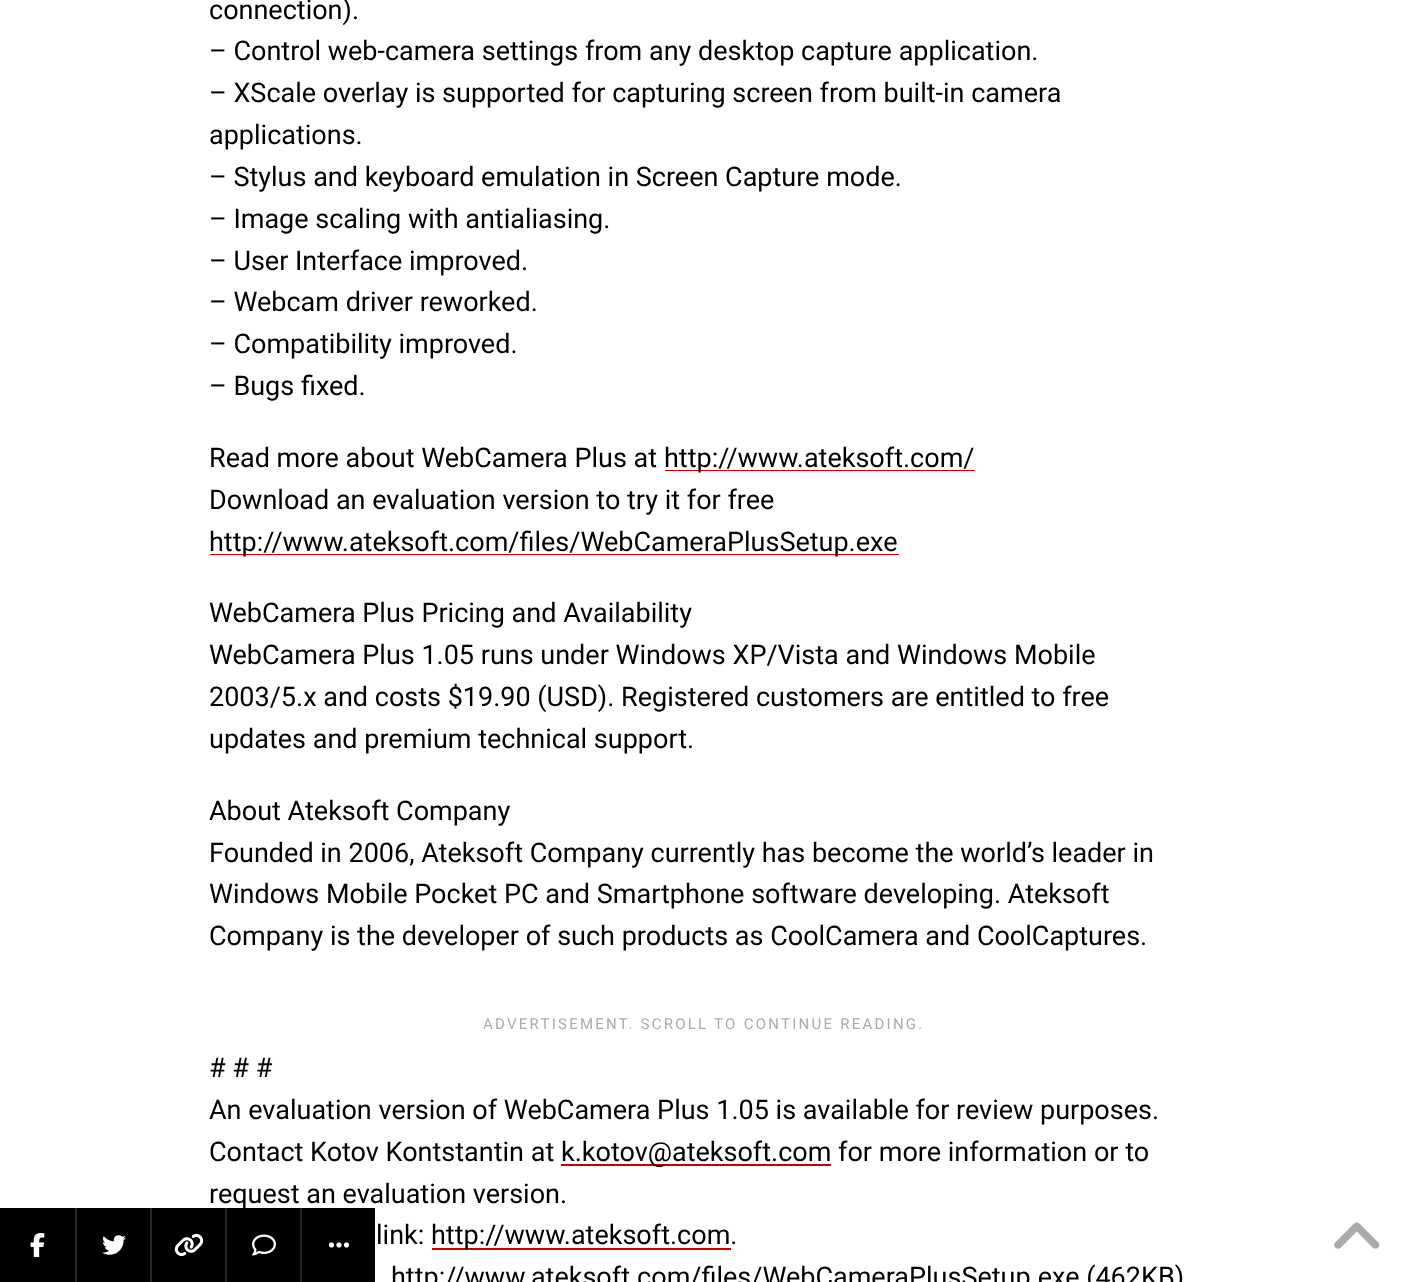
async function draw(canvas) {
	canvas.width = 1408;
	canvas.height = 1282;
	const c = canvas.getContext('2d');
	c.miterLimit = 4;
	c.fontKerning = 'normal';
	async function loadImage(src) {
		const img = new Image();
		img.src = src;
		await img.decode();
		return img;
	}

	c.fillStyle = '#fff';
	c.fillRect(0, 0, 1408, 1282);
	c.fillStyle = '#000';
	c.fillRect(0, 1208, 75, 74);
	c.drawImage(await loadImage('img1.png'), 30, 1233, 15, 24);
	c.fillRect(77, 1208, 73, 74);
	c.fillStyle = '#262626';
	c.fillRect(75, 1208, 2, 74);
	c.drawImage(await loadImage('img2.png'), 102, 1235, 24, 20);
	c.fillStyle = '#000';
	c.fillRect(152, 1208, 73, 74);
	c.fillStyle = '#262626';
	c.fillRect(150, 1208, 2, 74);
	c.drawImage(await loadImage('img3.png'), 174, 1234, 30, 22);
	c.fillStyle = '#000';
	c.fillRect(227, 1208, 73, 74);
	c.font = '27px Roboto';
	c.fillText('request an evaluation version.', 209, 1203);
	c.fillStyle = '#262626';
	c.fillRect(225, 1208, 2, 74);
	c.drawImage(await loadImage('img4.png'), 252, 1234, 24, 22);
	c.fillStyle = '#000';
	c.fillRect(302, 1208, 73, 74);
	c.fillStyle = '#262626';
	c.fillRect(300, 1208, 2, 74);
	c.drawImage(await loadImage('img5.png'), 328, 1242, 22, 6);
	c.fillStyle = '#000';
	for (const [text, x, y] of [
		['connection).', 209, 19],
		['– Control web-camera settings from any desktop capture application.', 209, 60],
		['– XScale overlay is supported for capturing screen from built-in camera', 209, 102],
		['applications.', 209, 144],
		['– Stylus and keyboard emulation in Screen Capture mode.', 209, 186],
		['– Image scaling with antialiasing.', 209, 228],
		['– User Interface improved.', 209, 270],
		['– Webcam driver reworked.', 209, 311],
		['– Compatibility improved.', 209, 353],
		['– Bugs fixed.', 209, 395],
		['Read more about WebCamera Plus at', 209, 467],
	]) {
		c.fillText(text, x, y);
	}
	c.fillStyle = '#c00';
	c.fillRect(665, 470, 310, 1);
	c.fillStyle = '#000';
	c.fillText('http://www.ateksoft.com/', 664, 467);
	c.fillText('Download an evaluation version to try it for free', 209, 509);
	c.fillStyle = '#c00';
	c.fillRect(210, 554, 689, 1);
	c.fillStyle = '#000';
	for (const [text, x, y] of [
		['http://www.ateksoft.com/files/WebCameraPlusSetup.exe', 209, 551],
		['WebCamera Plus Pricing and Availability', 209, 622],
		['WebCamera Plus 1.05 runs under Windows XP/Vista and Windows Mobile', 209, 664],
		['2003/5.x and costs $19.90 (USD). Registered customers are entitled to free', 209, 706],
		['updates and premium technical support.', 209, 748],
		['About Ateksoft Company', 209, 820],
		['Founded in 2006, Ateksoft Company currently has become the world’s leader in', 209, 862],
		['Windows Mobile Pocket PC and Smartphone software developing. Ateksoft', 209, 903],
		['Company is the developer of such products as CoolCamera and CoolCaptures.', 209, 945],
	]) {
		c.fillText(text, x, y);
	}
	c.letterSpacing = '2.25px';
	c.font = '15px Roboto';
	c.fillStyle = '#aaa';
	c.fillText('ADVERTISEMENT. SCROLL TO CONTINUE READING.', 483, 1029);
	c.letterSpacing = '0px';
	c.font = '27px Roboto';
	c.fillStyle = '#000';
	for (const [text, x, y] of [
		['# # #', 209, 1077],
		['An evaluation version of WebCamera Plus 1.05 is available for review purposes.', 209, 1119],
		['Contact Kotov Kontstantin at', 209, 1161],
	]) {
		c.fillText(text, x, y);
	}
	c.fillStyle = '#c00';
	c.fillRect(561, 1164, 270, 2);
	c.fillStyle = '#000';
	c.fillText('k.kotov@ateksoft.com for more information or to', 561, 1161);
	c.fillText('link:', 376, 1244);
	c.fillStyle = '#c00';
	c.fillRect(432, 1248, 299, 2);
	c.fillStyle = '#000';
	c.fillText('http://www.ateksoft.com.', 431, 1244);
	c.fillText('http://www.ateksoft.com/files/WebCameraPlusSetup.exe (462KB)', 391, 1286);
	c.drawImage(await loadImage('img6.png'), 1334, 1222, 46, 27);
}

draw(document.querySelector('canvas'));
